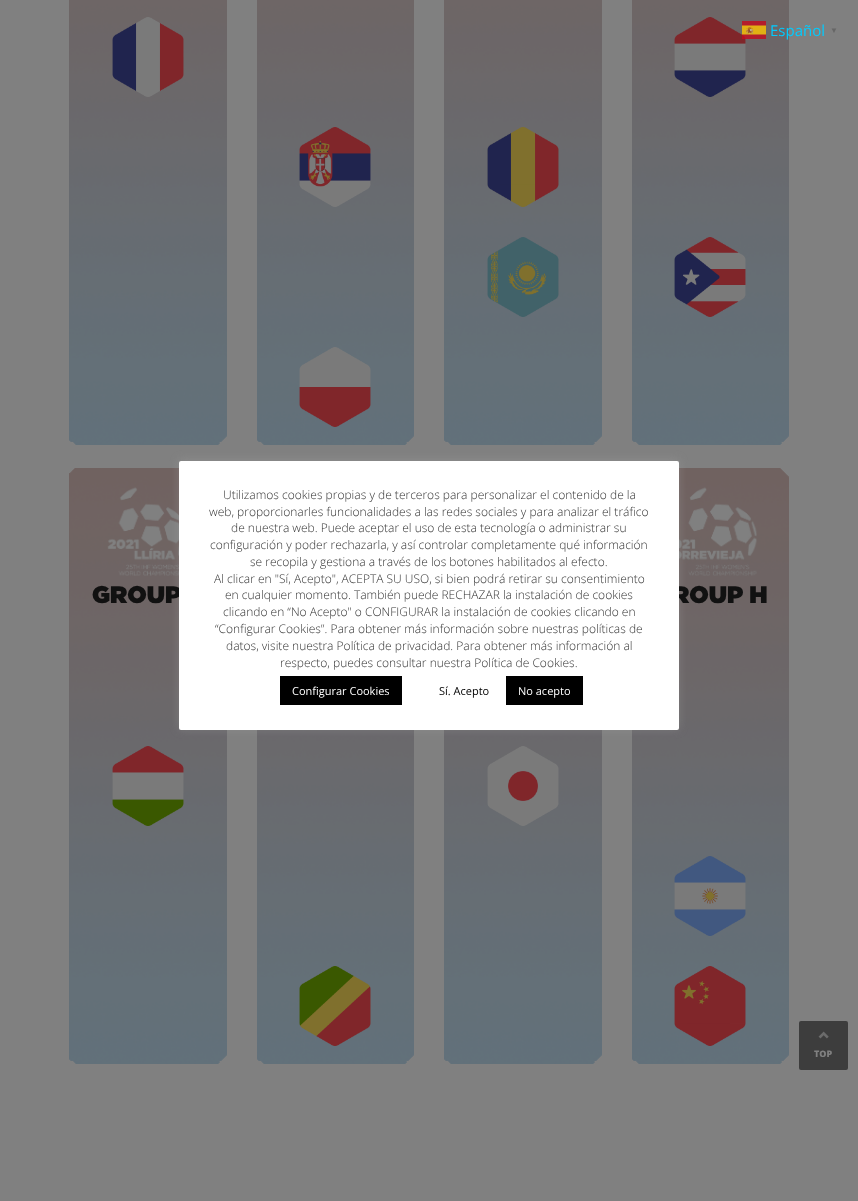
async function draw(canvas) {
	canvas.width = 858;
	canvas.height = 1201;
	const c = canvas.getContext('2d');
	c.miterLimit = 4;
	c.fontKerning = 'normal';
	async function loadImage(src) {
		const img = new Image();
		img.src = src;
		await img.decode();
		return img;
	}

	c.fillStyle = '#808080';
	c.fillRect(0, 0, 858, 1201);
	c.drawImage(await loadImage('img4.png'), 632, 0, 157, 445);
	c.drawImage(await loadImage('img9.png'), 674, 17, 72, 80);
	c.drawImage(await loadImage('img1.png'), 742, 21, 24, 18);
	c.font = '15px Open Sans';
	c.fillStyle = '#0cf';
	c.fillText('Español', 770, 36);
	c.font = 'bold 8px Liberation Sans';
	c.fillStyle = '#666';
	c.fillText('▼', 830, 33);
	c.drawImage(await loadImage('img2.png'), 69, 0, 158, 445);
	c.drawImage(await loadImage('img4.png'), 257, 0, 157, 445);
	c.drawImage(await loadImage('img2.png'), 444, 0, 158, 445);
	c.drawImage(await loadImage('img11.png'), 69, 468, 158, 596);
	c.drawImage(await loadImage('img12.png'), 107, 487, 72, 89);
	c.drawImage(await loadImage('img14.png'), 257, 730, 157, 334);
	c.drawImage(await loadImage('img16.png'), 632, 468, 157, 596);
	c.drawImage(await loadImage('img17.png'), 679, 487, 78, 89);
	c.drawImage(await loadImage('img20.png'), 444, 730, 158, 334);
	c.fillStyle = '#acabab4d';
	c.filter = 'blur(5px)';
	c.beginPath();
	c.roundRect(179, 460, 500, 269, 2);
	c.fill();
	c.filter = 'none';
	c.font = '24px Gotham';
	c.fillStyle = '#111';
	c.fillText('GROUP', 92, 603);
	c.fillText('ROUP H', 672, 603);
	c.fillStyle = '#fff';
	c.beginPath();
	c.roundRect(179, 461, 500, 269, 2);
	c.fill();
	c.font = '300 12px Open Sans';
	c.fillStyle = '#333';
	for (const [text, x, y] of [
		['Utilizamos cookies propias y de terceros para personalizar el contenido de la', 223, 499],
		['web, proporcionarles funcionalidades a las redes sociales y para analizar el tráfico', 209, 516],
		['de nuestra web. Puede aceptar el uso de esta tecnología o administrar su', 231, 532],
		['configuración y poder rechazarla, y así controlar completamente qué información', 210, 549],
		['se recopila y gestiona a través de los botones habilitados al efecto.', 250, 566],
		['Al clicar en "Sí, Acepto", ACEPTA SU USO, si bien podrá retirar su consentimiento', 214, 583],
		['en cualquier momento. También puede RECHAZAR la instalación de cookies', 225, 599],
		['clicando en “No Acepto" o CONFIGURAR la instalación de cookies clicando en', 223, 616],
		['“Configurar Cookies”. Para obtener más información sobre nuestras políticas de', 215, 633],
		['datos, visite nuestra Política de privacidad. Para obtener más información al', 226, 650],
		['respecto, puedes consultar nuestra Política de Cookies.', 280, 667],
	]) {
		c.fillText(text, x, y);
	}
	c.fillStyle = '#000';
	c.fillRect(280, 676, 122, 29);
	c.font = '11px Open Sans';
	c.fillStyle = '#fff';
	c.fillText('Configurar Cookies', 292, 695);
	c.fillStyle = '#000';
	c.fillText('Sí. Acepto', 439, 695);
	c.fillRect(506, 676, 77, 29);
	c.fillStyle = '#fff';
	c.fillText('No acepto', 518, 695);
	c.drawImage(await loadImage('img3.png'), 112, 17, 72, 80);
	c.drawImage(await loadImage('img5.png'), 299, 127, 72, 80);
	c.drawImage(await loadImage('img6.png'), 299, 347, 72, 80);
	c.drawImage(await loadImage('img7.png'), 487, 127, 72, 80);
	c.drawImage(await loadImage('img8.png'), 487, 237, 72, 80);
	c.drawImage(await loadImage('img10.png'), 674, 237, 72, 80);
	c.drawImage(await loadImage('img13.png'), 112, 746, 72, 80);
	c.drawImage(await loadImage('img15.png'), 299, 966, 72, 80);
	c.drawImage(await loadImage('img18.png'), 674, 856, 72, 80);
	c.drawImage(await loadImage('img19.png'), 674, 966, 72, 80);
	c.drawImage(await loadImage('img21.png'), 487, 746, 72, 80);
	c.fillStyle = '#3d3d3d';
	c.beginPath();
	c.roundRect(799, 1021, 49, 49, 2);
	c.fill();
	c.drawImage(await loadImage('img22.png'), 818, 1031, 11, 8);
	c.font = '800 9px Open Sans';
	c.fillStyle = '#808080';
	c.fillText('TOP', 814, 1057);
}

draw(document.querySelector('canvas'));
